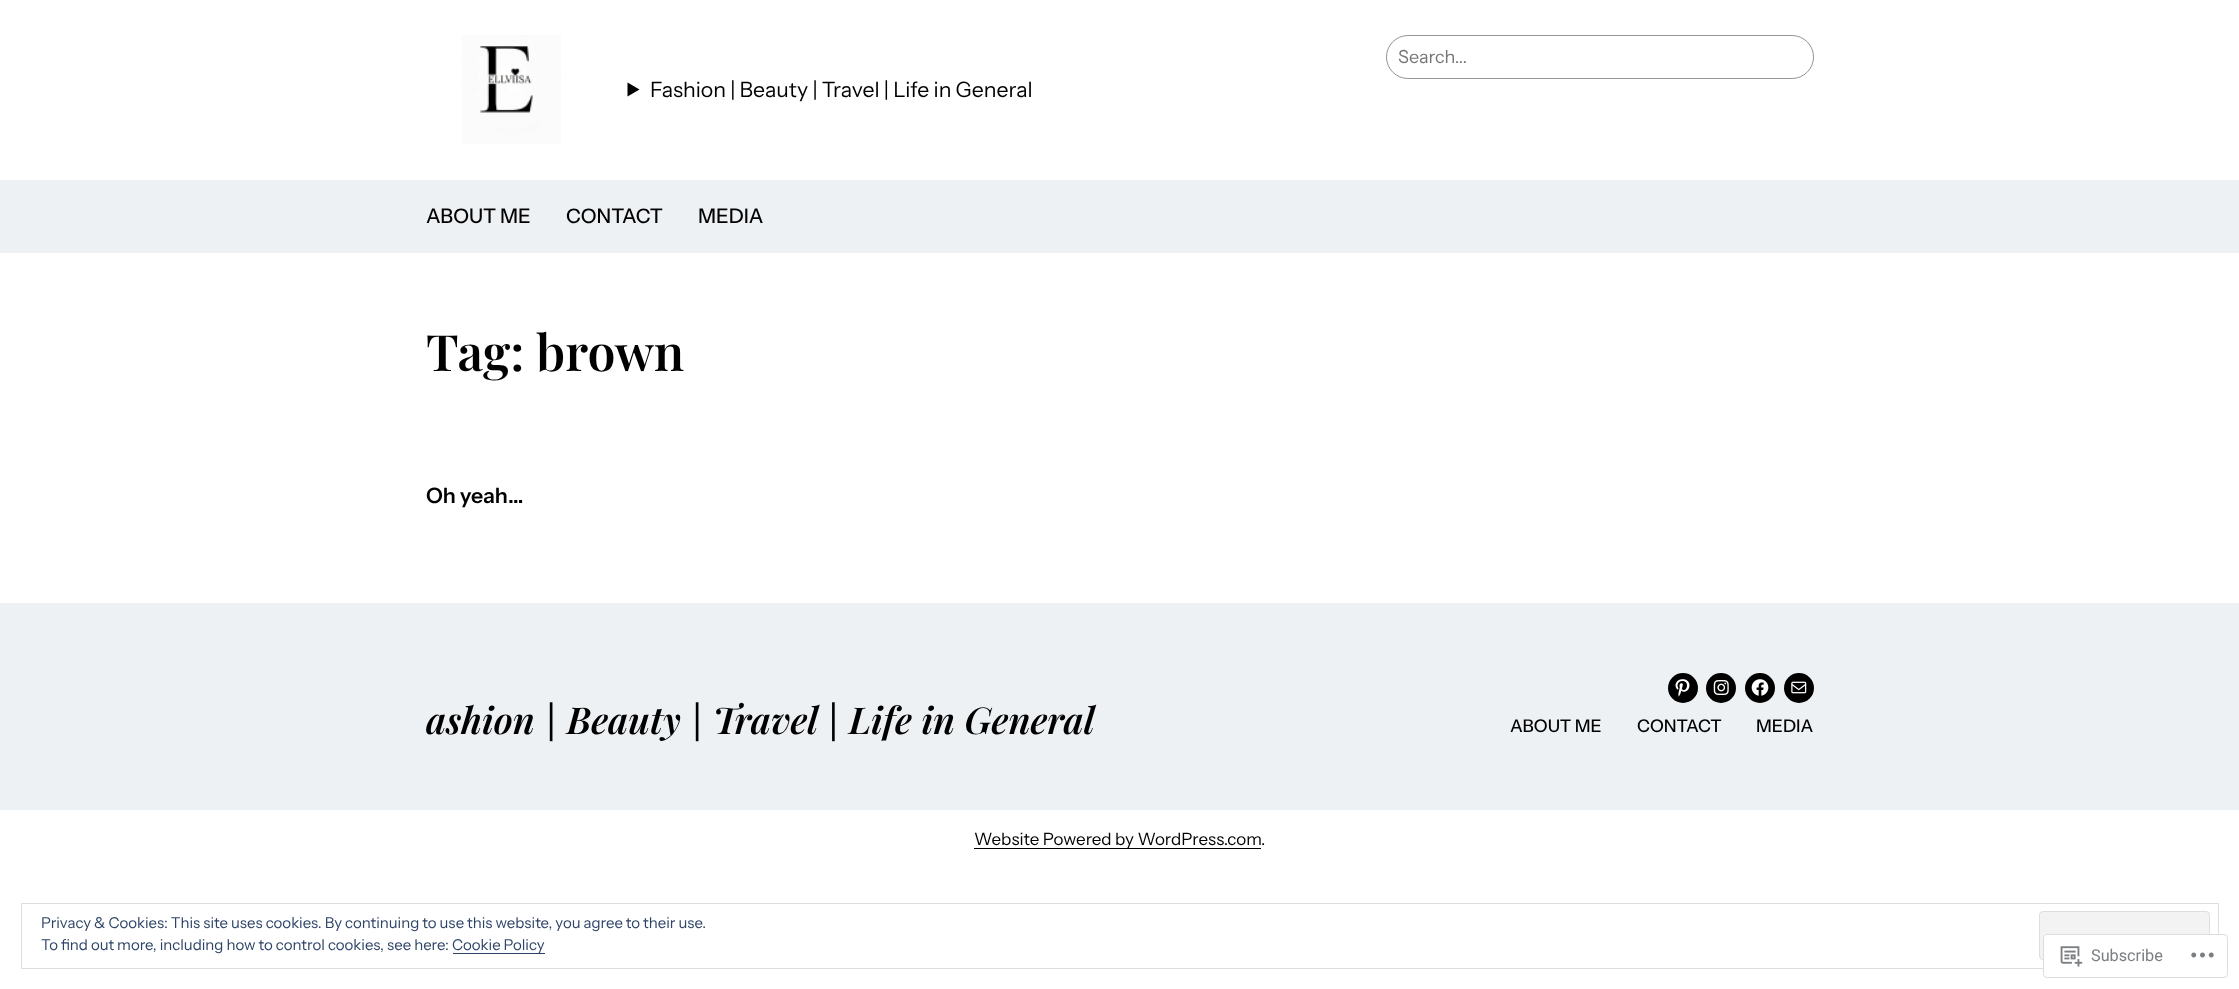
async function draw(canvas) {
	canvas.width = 2239;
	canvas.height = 989;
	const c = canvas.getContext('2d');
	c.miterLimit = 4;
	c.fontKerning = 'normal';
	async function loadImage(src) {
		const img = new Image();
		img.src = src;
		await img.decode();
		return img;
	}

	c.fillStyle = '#fff';
	c.fillRect(0, 0, 2239, 989);
	c.beginPath();
	c.roundRect(1386.5, 35.5, 427, 43, 21.5);
	c.strokeStyle = '#949494';
	c.stroke();
	c.font = '18px Instrument Sans';
	c.fillStyle = '#757575';
	c.fillText('Search...', 1398, 63);
	c.drawImage(await loadImage('img1.png'), 462, 35, 99, 109);
	c.fillStyle = '#000';
	c.beginPath();
	c.moveTo(627.5, 82.5);
	c.lineTo(639.5, 89.5);
	c.lineTo(627.5, 96.5);
	c.closePath();
	c.fill();
	c.font = '21.25px Instrument Sans';
	c.fillText('Fashion | Beauty | Travel | Life in General', 650, 97);
	c.fillStyle = '#edf1f4';
	c.fillRect(0, 180, 2239, 73);
	c.font = '500 20px Instrument Sans';
	c.fillStyle = '#000';
	for (const [text, x, y] of [
		['ABOUT ME', 426, 223],
		['CONTACT', 566, 223],
		['MEDIA', 698, 223],
	]) {
		c.fillText(text, x, y);
	}
	c.font = '600 50px Playfair Display';
	c.fillText('Tag: brown', 426, 371);
	c.font = '600 21.25px Instrument Sans';
	c.fillText('Oh yeah…', 426, 503);
	c.fillStyle = '#edf1f4';
	c.fillRect(0, 603, 2239, 207);
	c.font = 'italic 600 37px Playfair Display';
	c.fillStyle = '#000';
	c.fillText('ashion | Beauty | Travel | Life in General', 426, 734);
	c.beginPath();
	c.arc(1683, 688, 15, 0, 2 * Math.PI);
	c.fill();
	c.drawImage(await loadImage('img2.png'), 1675, 679, 15, 18);
	c.beginPath();
	c.arc(1721, 688, 15, 0, 2 * Math.PI);
	c.fill();
	c.drawImage(await loadImage('img3.png'), 1713, 680, 16, 15);
	c.beginPath();
	c.arc(1760, 688, 15, 0, 2 * Math.PI);
	c.fill();
	c.drawImage(await loadImage('img4.png'), 1751, 679, 18, 17);
	c.beginPath();
	c.arc(1799, 688, 15, 0, 2 * Math.PI);
	c.fill();
	c.drawImage(await loadImage('img5.png'), 1791, 681, 16, 13);
	c.font = '500 17.5px Instrument Sans';
	for (const [text, x, y] of [
		['ABOUT ME', 1510, 732],
		['CONTACT', 1637, 732],
		['MEDIA', 1756, 732],
	]) {
		c.fillText(text, x, y);
	}
	c.fillRect(974, 848, 287, 1);
	c.font = '17px Instrument Sans';
	c.fillText('Website Powered by WordPress.com', 974, 845);
	c.fillText('.', 1261, 845);
	c.strokeStyle = '#dedede';
	c.strokeRect(21.5, 903.5, 2197, 65);
	c.font = '15px Instrument Sans';
	c.fillStyle = '#2e4467';
	c.fillText('Privacy & Cookies: This site uses cookies. By continuing to use this website, you agree to their use.', 41, 928);
	c.fillStyle = '#f3f3f3';
	c.beginPath();
	c.roundRect(2039.5, 911.5, 170, 48, 3.5);
	c.fill();
	c.stroke();
	c.fillStyle = '#2e4467';
	c.fillText('To find out more, including how to control cookies, see here:', 41, 950);
	c.fillRect(453, 953, 92, 1);
	c.fillText('Cookie Policy', 452, 950);
	c.fillStyle = '#fffffffa';
	c.beginPath();
	c.roundRect(2043, 934, 185, 44, 4);
	c.fill();
	c.beginPath();
	c.roundRect(2043.5, 934.5, 184, 43, 3.5);
	c.strokeStyle = '#dcdcdefa';
	c.stroke();
	c.drawImage(await loadImage('img6.png'), 2060, 946, 23, 21);
	c.font = '16.25px Roboto';
	c.fillStyle = '#7b7f84';
	c.fillText('Subscribe', 2091, 961);
	c.drawImage(await loadImage('img7.png'), 2191, 952, 23, 6);
}

draw(document.querySelector('canvas'));
